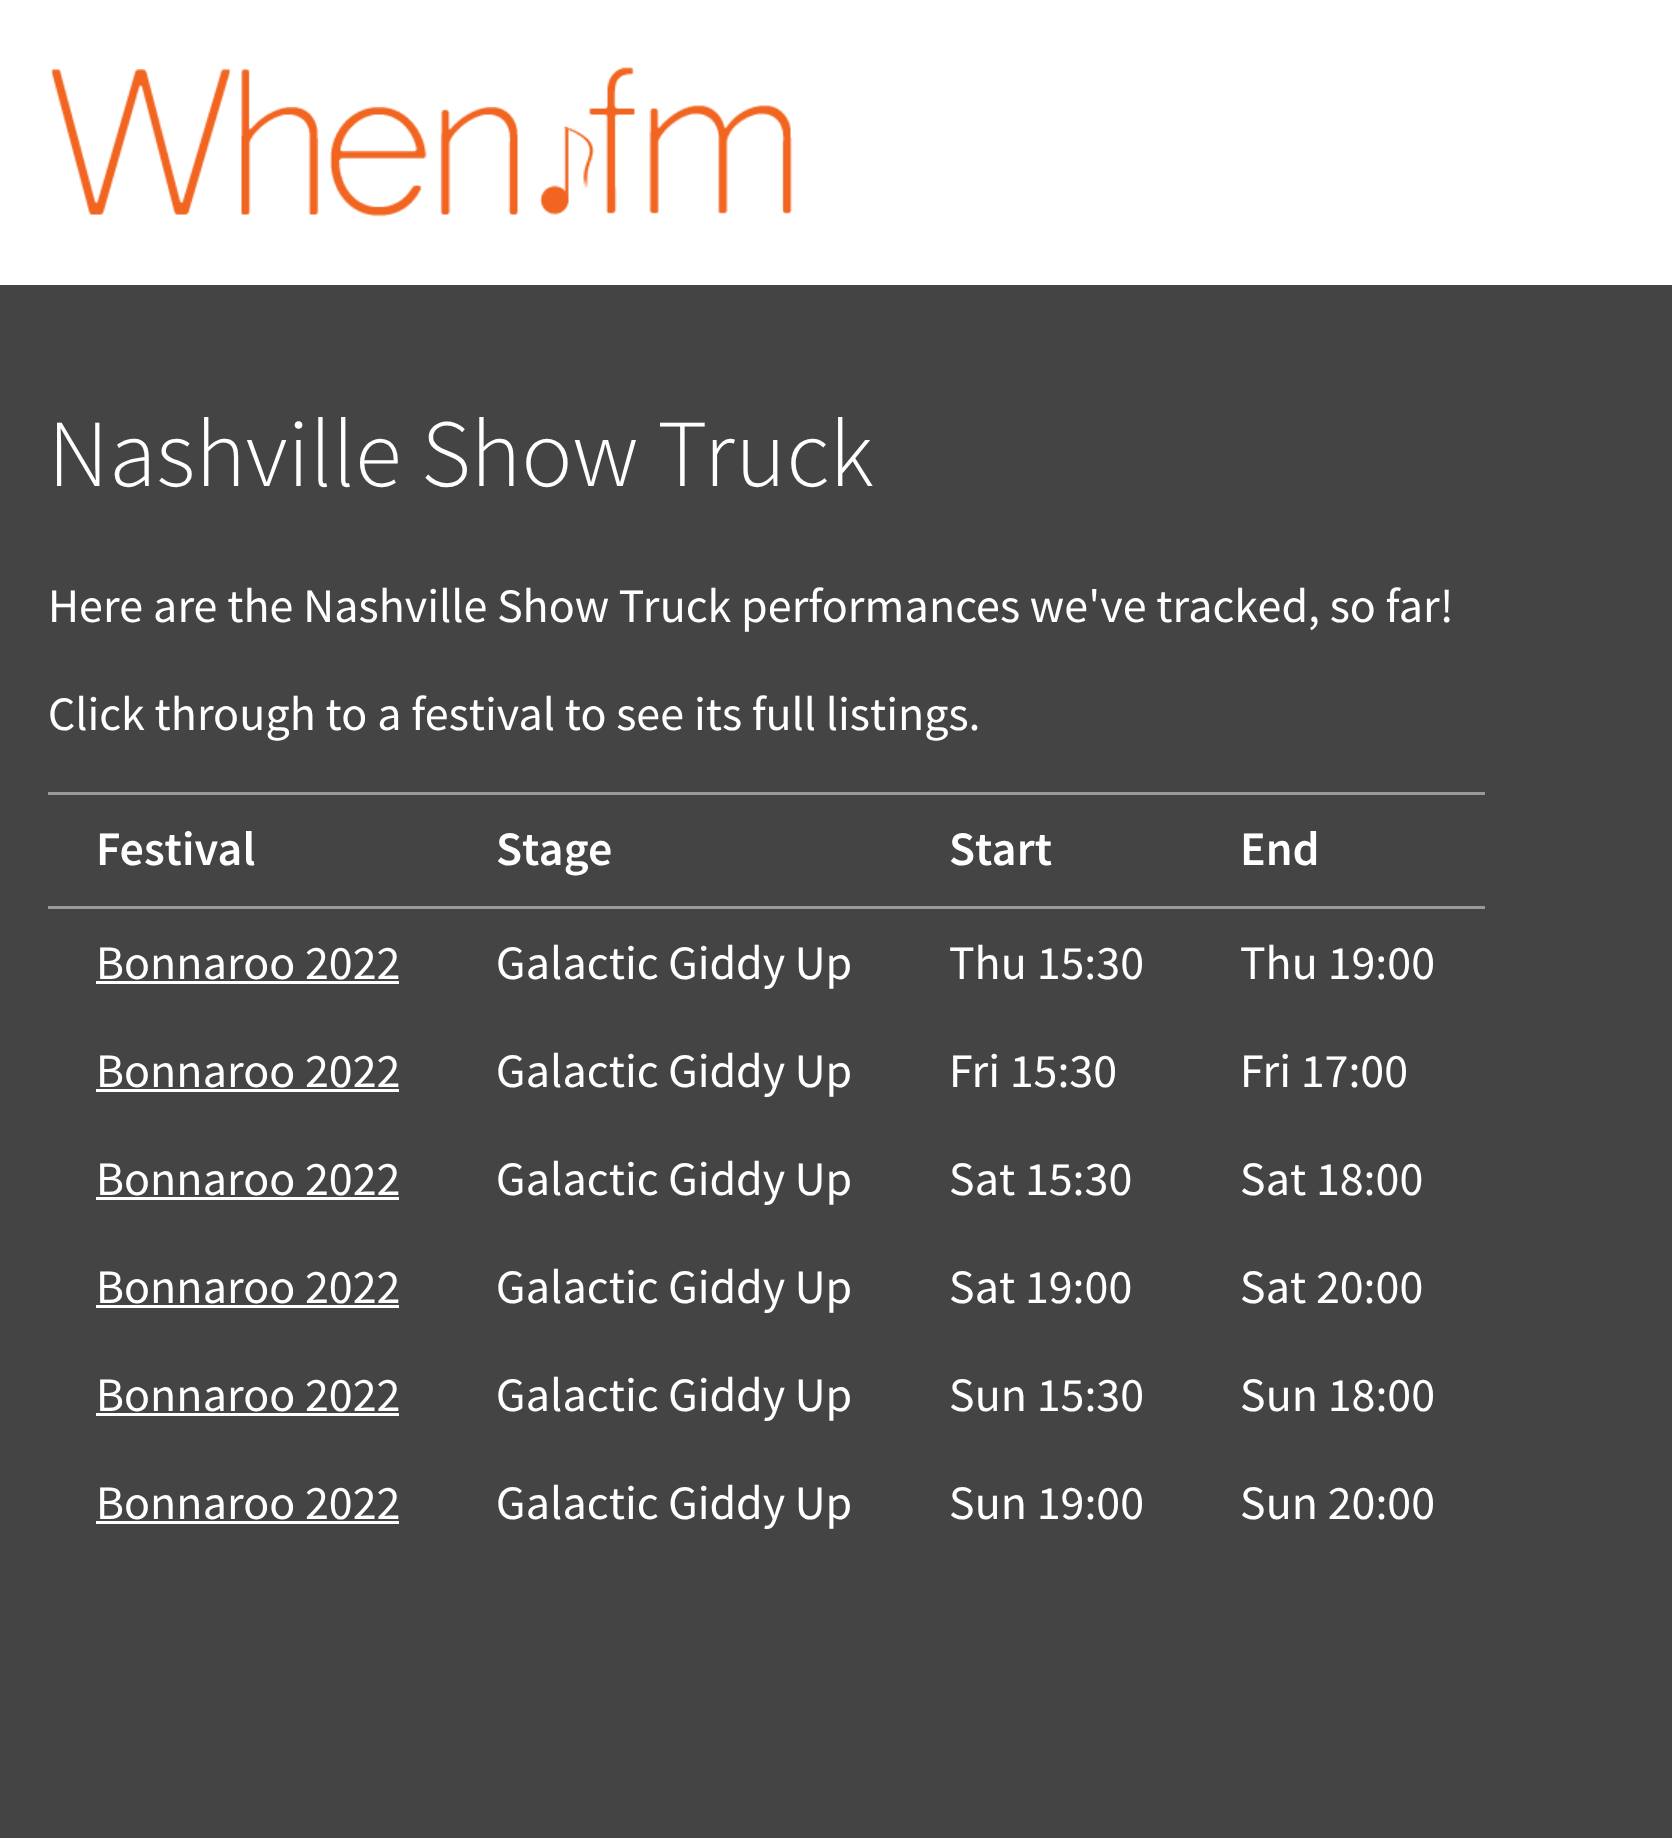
async function draw(canvas) {
	canvas.width = 1672;
	canvas.height = 1838;
	const c = canvas.getContext('2d');
	c.miterLimit = 4;
	c.fontKerning = 'normal';
	async function loadImage(src) {
		const img = new Image();
		img.src = src;
		await img.decode();
		return img;
	}

	c.fillStyle = '#444';
	c.fillRect(0, 0, 1672, 1838);
	c.fillStyle = '#fff';
	c.fillRect(0, 0, 1672, 285);
	c.drawImage(await loadImage('img1.png'), 50, 67, 743, 150);
	c.font = '300 96px Source Sans Pro';
	c.fillText('Nashville Show Truck', 48, 486);
	c.font = '48px Source Sans Pro';
	c.fillText('Here are the Nashville Show Truck performances we\'ve tracked, so far!', 48, 622);
	c.fillText('Click through to a festival to see its full listings.', 48, 730);
	c.font = '600 48px Source Sans Pro';
	for (const [text, x, y] of [
		['Festival', 96, 865],
		['Stage', 496, 865],
		['Start', 949, 865],
	]) {
		c.fillText(text, x, y);
	}
	c.fillStyle = '#999';
	c.fillRect(48, 792, 1437, 3);
	c.fillRect(48, 906, 1437, 3);
	c.fillStyle = '#fff';
	c.fillText('End', 1240, 865);
	c.font = '48px Source Sans Pro';
	c.fillText('Bonnaroo 2022', 96, 979);
	c.fillRect(96, 981, 303, 3);
	for (const [text, x, y] of [
		['Galactic Giddy Up', 496, 979],
		['Thu 15:30', 949, 979],
		['Thu 19:00', 1240, 979],
		['Bonnaroo 2022', 96, 1087],
	]) {
		c.fillText(text, x, y);
	}
	c.fillRect(96, 1089, 303, 3);
	for (const [text, x, y] of [
		['Galactic Giddy Up', 496, 1087],
		['Fri 15:30', 949, 1087],
		['Fri 17:00', 1240, 1087],
		['Bonnaroo 2022', 96, 1195],
	]) {
		c.fillText(text, x, y);
	}
	c.fillRect(96, 1197, 303, 3);
	for (const [text, x, y] of [
		['Galactic Giddy Up', 496, 1195],
		['Sat 15:30', 949, 1195],
		['Sat 18:00', 1240, 1195],
		['Bonnaroo 2022', 96, 1303],
	]) {
		c.fillText(text, x, y);
	}
	c.fillRect(96, 1305, 303, 3);
	for (const [text, x, y] of [
		['Galactic Giddy Up', 496, 1303],
		['Sat 19:00', 949, 1303],
		['Sat 20:00', 1240, 1303],
		['Bonnaroo 2022', 96, 1411],
	]) {
		c.fillText(text, x, y);
	}
	c.fillRect(96, 1413, 303, 3);
	for (const [text, x, y] of [
		['Galactic Giddy Up', 496, 1411],
		['Sun 15:30', 949, 1411],
		['Sun 18:00', 1240, 1411],
		['Bonnaroo 2022', 96, 1519],
	]) {
		c.fillText(text, x, y);
	}
	c.fillRect(96, 1521, 303, 3);
	for (const [text, x, y] of [
		['Galactic Giddy Up', 496, 1519],
		['Sun 19:00', 949, 1519],
		['Sun 20:00', 1240, 1519],
	]) {
		c.fillText(text, x, y);
	}
}

draw(document.querySelector('canvas'));
